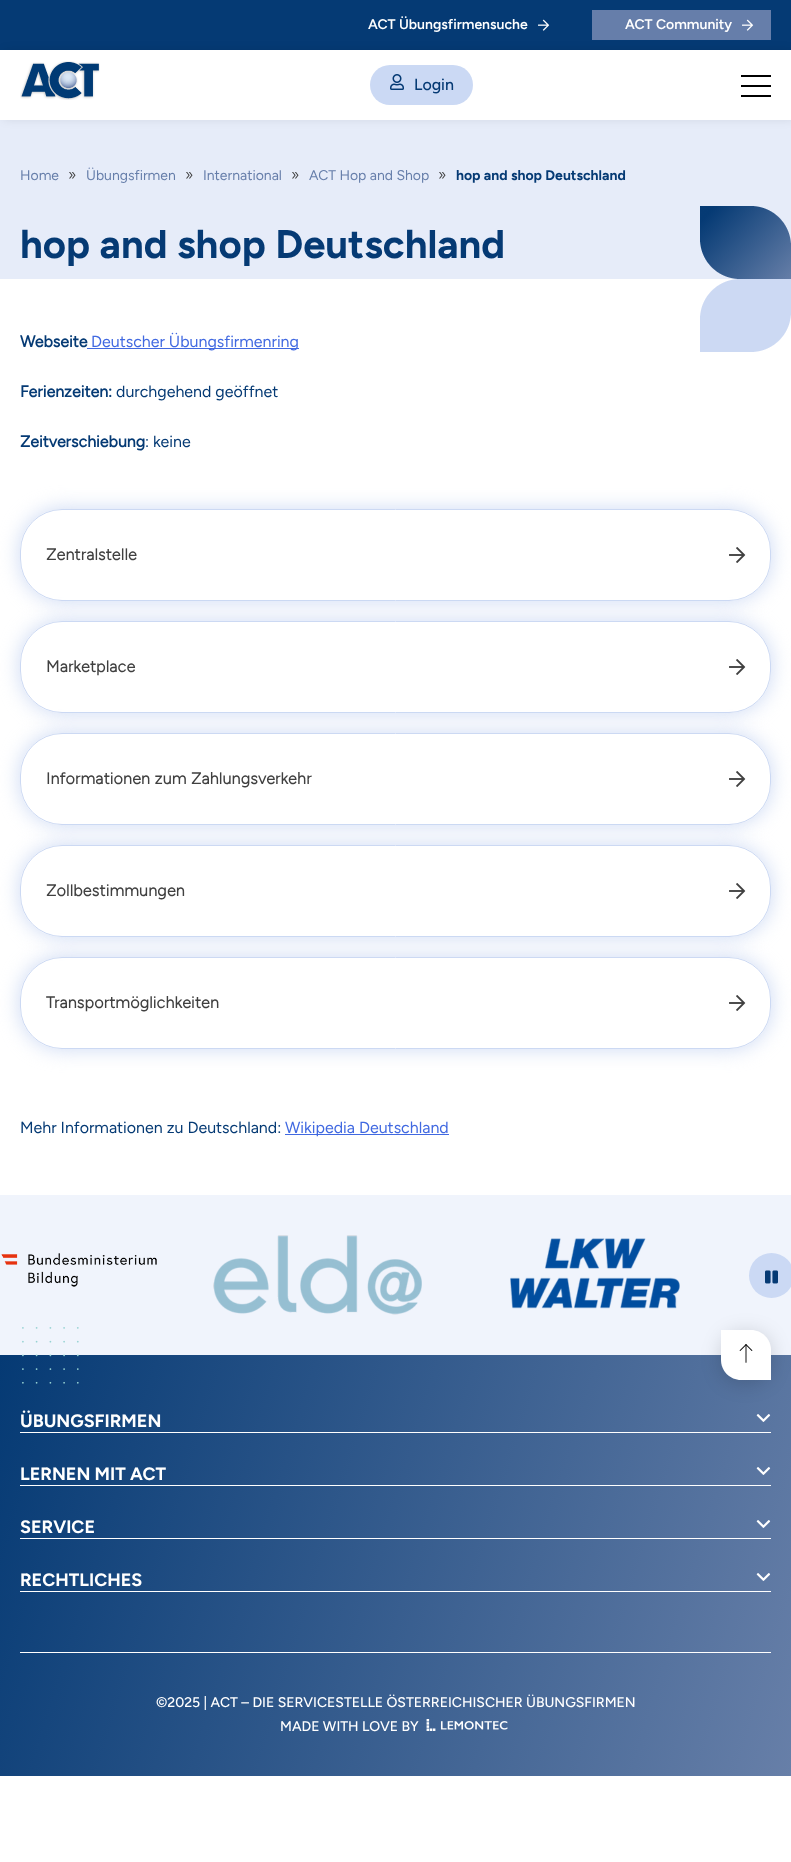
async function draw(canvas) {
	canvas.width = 791;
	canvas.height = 1862;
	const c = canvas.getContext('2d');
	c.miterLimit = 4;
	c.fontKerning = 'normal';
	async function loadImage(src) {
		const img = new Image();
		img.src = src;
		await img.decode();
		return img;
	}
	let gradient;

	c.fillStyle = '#fff';
	c.fillRect(0, 0, 791, 1862);
	c.fillStyle = '#053a74';
	c.fillRect(0, 0, 791, 50);
	c.font = '600 14px Figtree';
	c.fillStyle = '#fff';
	c.fillText('ACT Übungsfirmensuche', 368, 29);
	c.drawImage(await loadImage('img1.png'), 538, 19, 12, 12);
	c.fillStyle = '#667eaa';
	c.fillRect(592, 10, 179, 30);
	c.fillStyle = '#fff';
	c.fillText('ACT Community', 625, 29);
	c.drawImage(await loadImage('img2.png'), 742, 19, 12, 12);
	c.fillStyle = '#e6ecf9';
	c.fillRect(0, 120, 791, 159);
	c.fillStyle = '#00000014';
	c.filter = 'blur(5px)';
	c.beginPath();
	c.rect(3, 50, 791, 70);
	c.fill();
	c.filter = 'none';
	c.fillStyle = '#fff';
	c.fillRect(0, 50, 791, 70);
	c.drawImage(await loadImage('img3.png'), 20, 61, 80, 39);
	c.fillStyle = '#cbd9f4';
	c.beginPath();
	c.roundRect(370, 65, 103, 40, 20);
	c.fill();
	c.drawImage(await loadImage('img4.png'), 390, 74, 14, 16);
	c.font = '500 16px Figtree';
	c.fillStyle = '#053a74';
	c.fillText('Login', 414, 90);
	for (const [x, y, w, h, color] of [
		[741, 75, 30, 2, '#000'],
		[741, 85, 30, 2, '#000'],
		[741, 95, 30, 2, '#000'],
	]) {
		c.fillStyle = color;
		c.fillRect(x, y, w, h);
	}
	c.font = '14px Figtree';
	c.fillStyle = '#667eaa';
	c.fillText('Home', 20, 180);
	c.letterSpacing = '0.25px';
	c.font = '300 16px Figtree';
	c.fillStyle = '#404040';
	c.fillText('»', 68, 180);
	c.letterSpacing = '0px';
	c.font = '14px Figtree';
	c.fillStyle = '#667eaa';
	c.fillText('Übungsfirmen', 86, 180);
	c.letterSpacing = '0.25px';
	c.font = '300 16px Figtree';
	c.fillStyle = '#404040';
	c.fillText('»', 185, 180);
	c.letterSpacing = '0px';
	c.font = '14px Figtree';
	c.fillStyle = '#667eaa';
	c.fillText('International', 203, 180);
	c.letterSpacing = '0.25px';
	c.font = '300 16px Figtree';
	c.fillStyle = '#404040';
	c.fillText('»', 291, 180);
	c.letterSpacing = '0px';
	c.font = '14px Figtree';
	c.fillStyle = '#667eaa';
	c.fillText('ACT Hop and Shop', 309, 180);
	c.letterSpacing = '0.25px';
	c.font = '300 16px Figtree';
	c.fillStyle = '#404040';
	c.fillText('»', 438, 180);
	c.letterSpacing = '0px';
	c.font = 'bold 14px "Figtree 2"';
	c.fillStyle = '#053a74';
	c.fillText('hop and shop Deutschland', 456, 180);
	c.font = 'bold 40px "Figtree 2"';
	c.fillText('hop and shop Deutschland', 20, 258);
	c.drawImage(await loadImage('img5.png'), 700, 206, 91, 73);
	c.drawImage(await loadImage('img6.png'), 700, 279, 91, 73);
	c.font = 'bold 16px Figtree';
	c.fillText('Webseite', 20, 347);
	c.fillStyle = '#4169e1';
	c.fillRect(87, 348, 212, 1);
	c.font = '16px Figtree';
	c.fillText('Deutscher Übungsfirmenring', 91, 347);
	c.font = 'bold 16px Figtree';
	c.fillStyle = '#053a74';
	c.fillText('Ferienzeiten:', 20, 397);
	c.font = '16px Figtree';
	c.fillText('durchgehend geöffnet', 116, 397);
	c.font = 'bold 16px Figtree';
	c.fillText('Zeitverschiebung', 20, 447);
	c.font = '16px Figtree';
	c.fillText(': keine', 145, 447);
	c.save();
	c.beginPath();
	c.moveTo(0, 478);
	c.lineTo(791, 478);
	c.lineTo(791, 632);
	c.lineTo(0, 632);
	c.closePath();
	c.moveTo(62, 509);
	c.lineTo(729, 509);
	c.bezierCurveTo(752, 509, 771, 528, 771, 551);
	c.lineTo(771, 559);
	c.bezierCurveTo(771, 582, 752, 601, 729, 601);
	c.lineTo(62, 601);
	c.bezierCurveTo(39, 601, 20, 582, 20, 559);
	c.lineTo(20, 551);
	c.bezierCurveTo(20, 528, 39, 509, 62, 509);
	c.closePath();
	c.clip('evenodd');
	c.fillStyle = '#ccd9f3';
	c.filter = 'blur(10px)';
	c.beginPath();
	c.roundRect(20, 509, 751, 92, 42);
	c.fill();
	c.filter = 'none';
	c.restore();
	c.beginPath();
	c.roundRect(20.5, 509.5, 750, 91, 41.5);
	c.strokeStyle = '#ccd9f3';
	c.stroke();
	c.letterSpacing = '0.25px';
	c.font = 'bold 16px "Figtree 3"';
	c.fillStyle = '#404040';
	c.fillText('Zentralstelle', 46, 560);
	c.drawImage(await loadImage('img7.png'), 729, 547, 17, 16);
	c.save();
	c.beginPath();
	c.moveTo(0, 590);
	c.lineTo(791, 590);
	c.lineTo(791, 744);
	c.lineTo(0, 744);
	c.closePath();
	c.moveTo(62, 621);
	c.lineTo(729, 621);
	c.bezierCurveTo(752, 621, 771, 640, 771, 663);
	c.lineTo(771, 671);
	c.bezierCurveTo(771, 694, 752, 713, 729, 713);
	c.lineTo(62, 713);
	c.bezierCurveTo(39, 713, 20, 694, 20, 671);
	c.lineTo(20, 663);
	c.bezierCurveTo(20, 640, 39, 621, 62, 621);
	c.closePath();
	c.clip('evenodd');
	c.fillStyle = '#ccd9f3';
	c.filter = 'blur(10px)';
	c.beginPath();
	c.roundRect(20, 621, 751, 92, 42);
	c.fill();
	c.filter = 'none';
	c.restore();
	c.beginPath();
	c.roundRect(20.5, 621.5, 750, 91, 41.5);
	c.stroke();
	c.fillText('Marketplace', 46, 672);
	c.drawImage(await loadImage('img7.png'), 729, 659, 17, 16);
	c.save();
	c.beginPath();
	c.moveTo(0, 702);
	c.lineTo(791, 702);
	c.lineTo(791, 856);
	c.lineTo(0, 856);
	c.closePath();
	c.moveTo(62, 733);
	c.lineTo(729, 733);
	c.bezierCurveTo(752, 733, 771, 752, 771, 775);
	c.lineTo(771, 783);
	c.bezierCurveTo(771, 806, 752, 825, 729, 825);
	c.lineTo(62, 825);
	c.bezierCurveTo(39, 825, 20, 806, 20, 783);
	c.lineTo(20, 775);
	c.bezierCurveTo(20, 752, 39, 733, 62, 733);
	c.closePath();
	c.clip('evenodd');
	c.fillStyle = '#ccd9f3';
	c.filter = 'blur(10px)';
	c.beginPath();
	c.roundRect(20, 733, 751, 92, 42);
	c.fill();
	c.filter = 'none';
	c.restore();
	c.beginPath();
	c.roundRect(20.5, 733.5, 750, 91, 41.5);
	c.stroke();
	c.fillText('Informationen zum Zahlungsverkehr', 46, 784);
	c.drawImage(await loadImage('img7.png'), 729, 771, 17, 16);
	c.save();
	c.beginPath();
	c.moveTo(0, 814);
	c.lineTo(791, 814);
	c.lineTo(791, 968);
	c.lineTo(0, 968);
	c.closePath();
	c.moveTo(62, 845);
	c.lineTo(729, 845);
	c.bezierCurveTo(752, 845, 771, 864, 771, 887);
	c.lineTo(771, 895);
	c.bezierCurveTo(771, 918, 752, 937, 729, 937);
	c.lineTo(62, 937);
	c.bezierCurveTo(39, 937, 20, 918, 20, 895);
	c.lineTo(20, 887);
	c.bezierCurveTo(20, 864, 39, 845, 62, 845);
	c.closePath();
	c.clip('evenodd');
	c.fillStyle = '#ccd9f3';
	c.filter = 'blur(10px)';
	c.beginPath();
	c.roundRect(20, 845, 751, 92, 42);
	c.fill();
	c.filter = 'none';
	c.restore();
	c.beginPath();
	c.roundRect(20.5, 845.5, 750, 91, 41.5);
	c.stroke();
	c.fillText('Zollbestimmungen', 46, 896);
	c.drawImage(await loadImage('img7.png'), 729, 883, 17, 16);
	c.save();
	c.beginPath();
	c.moveTo(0, 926);
	c.lineTo(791, 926);
	c.lineTo(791, 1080);
	c.lineTo(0, 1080);
	c.closePath();
	c.moveTo(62, 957);
	c.lineTo(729, 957);
	c.bezierCurveTo(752, 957, 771, 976, 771, 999);
	c.lineTo(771, 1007);
	c.bezierCurveTo(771, 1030, 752, 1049, 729, 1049);
	c.lineTo(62, 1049);
	c.bezierCurveTo(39, 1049, 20, 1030, 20, 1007);
	c.lineTo(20, 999);
	c.bezierCurveTo(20, 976, 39, 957, 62, 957);
	c.closePath();
	c.clip('evenodd');
	c.fillStyle = '#ccd9f3';
	c.filter = 'blur(10px)';
	c.beginPath();
	c.roundRect(20, 957, 751, 92, 42);
	c.fill();
	c.filter = 'none';
	c.restore();
	c.beginPath();
	c.roundRect(20.5, 957.5, 750, 91, 41.5);
	c.stroke();
	c.fillText('Transportmöglichkeiten', 46, 1008);
	c.drawImage(await loadImage('img7.png'), 729, 995, 17, 16);
	c.letterSpacing = '0px';
	c.font = '16px Figtree';
	c.fillStyle = '#053a74';
	c.fillText('Mehr Informationen zu Deutschland:', 20, 1133);
	c.fillStyle = '#4169e1';
	c.fillRect(285, 1134, 164, 1);
	c.fillText('Wikipedia Deutschland', 285, 1133);
	c.fillStyle = '#f0f4fc';
	c.fillRect(0, 1195, 791, 160);
	c.drawImage(await loadImage('img8.png'), 1, 1253, 156, 34);
	c.drawImage(await loadImage('img9.png'), 213, 1235, 209, 80);
	c.drawImage(await loadImage('img10.png'), 510, 1238, 170, 71);
	c.fillStyle = '#cbd9f4';
	c.beginPath();
	c.arc(771.5, 1275.5, 22.5, 0, 2 * Math.PI);
	c.fill();
	c.drawImage(await loadImage('img11.png'), 765, 1270, 13, 14);
	gradient = c.createLinearGradient(-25, 1437, 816, 1694);
	gradient.addColorStop(0, '#053a74');
	gradient.addColorStop(1, '#677fa8');
	c.fillStyle = gradient;
	c.fillRect(0, 1355, 791, 421);
	c.drawImage(await loadImage('img12.png'), 22, 1327, 57, 57);
	c.fillStyle = '#00000029';
	c.filter = 'blur(10px)';
	c.beginPath();
	c.roundRect(721, 1333, 50, 50, 20);
	c.fill();
	c.filter = 'none';
	c.fillStyle = '#fff';
	c.beginPath();
	c.moveTo(771, 1380);
	c.lineTo(741, 1380);
	c.bezierCurveTo(730, 1380, 721, 1371, 721, 1360);
	c.lineTo(721, 1330);
	c.lineTo(751, 1330);
	c.bezierCurveTo(762, 1330, 771, 1339, 771, 1350);
	c.closePath();
	c.fill();
	c.drawImage(await loadImage('img13.png'), 739, 1344, 14, 19);
	c.fillRect(20, 1432, 751, 1);
	c.font = 'bold 18px "Figtree 2"';
	c.fillText('ÜBUNGSFIRMEN', 20, 1427);
	c.drawImage(await loadImage('img14.png'), 756, 1414, 15, 8);
	c.fillRect(20, 1485, 751, 1);
	c.fillText('LERNEN MIT ACT', 20, 1480);
	c.drawImage(await loadImage('img15.png'), 756, 1467, 15, 8);
	c.fillRect(20, 1538, 751, 1);
	c.fillText('SERVICE', 20, 1533);
	c.drawImage(await loadImage('img16.png'), 756, 1520, 15, 8);
	c.fillRect(20, 1591, 751, 1);
	c.fillText('RECHTLICHES', 20, 1586);
	c.drawImage(await loadImage('img17.png'), 756, 1573, 15, 8);
	c.fillRect(20, 1652, 751, 1);
	c.font = '500 14px Figtree';
	c.fillText('©2025 | ACT – DIE SERVICESTELLE ÖSTERREICHISCHER ÜBUNGSFIRMEN', 156, 1707);
	c.fillText('MADE WITH LOVE BY', 280, 1731);
	c.drawImage(await loadImage('img18.png'), 426, 1719, 82, 12);
}

draw(document.querySelector('canvas'));
